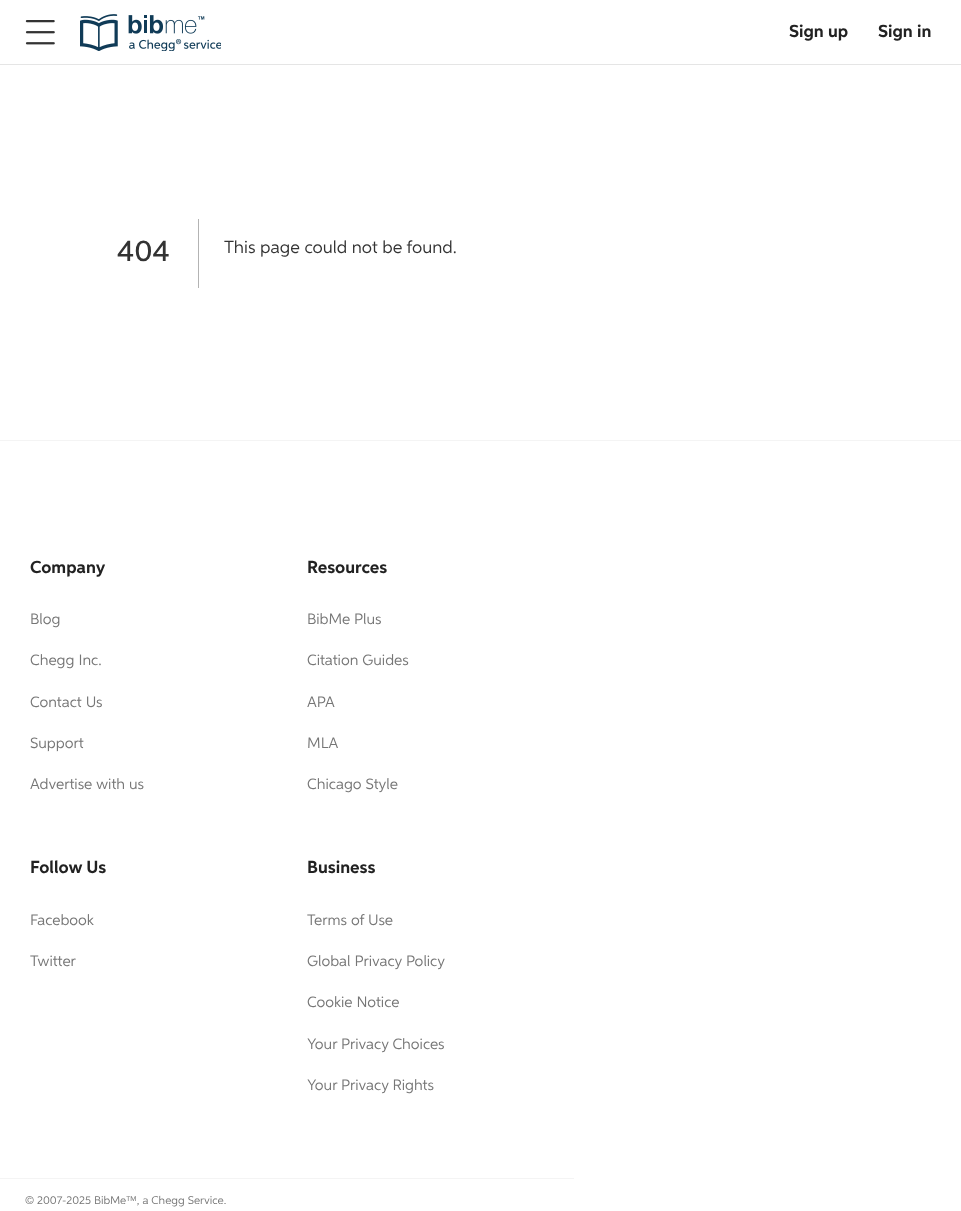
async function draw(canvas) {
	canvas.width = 961;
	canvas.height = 1211;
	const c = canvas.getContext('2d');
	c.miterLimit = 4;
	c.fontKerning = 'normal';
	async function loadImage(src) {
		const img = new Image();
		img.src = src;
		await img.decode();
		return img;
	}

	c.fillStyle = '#fff';
	c.fillRect(0, 0, 961, 1211);
	c.fillStyle = '#e5e5e5';
	c.fillRect(0, 64, 961, 1);
	c.drawImage(await loadImage('img1.png'), 25, 20, 30, 25);
	c.drawImage(await loadImage('img2.png'), 80, 14, 141, 37);
	c.font = '17.5px "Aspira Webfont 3"';
	c.fillStyle = '#222';
	c.fillText('Sign up', 789, 37);
	c.fillText('Sign in', 878, 37);
	c.fillStyle = '#b3b3b3';
	c.fillRect(198, 219, 1, 69);
	c.font = '30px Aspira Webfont';
	c.fillStyle = '#333';
	c.fillText('404', 117, 261);
	c.font = '17.5px "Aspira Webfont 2"';
	c.fillText('This page could not be found.', 224, 253);
	c.fillStyle = '#f4f4f4';
	c.fillRect(0, 440, 961, 1);
	c.font = '17.5px "Aspira Webfont 3"';
	c.fillStyle = '#222';
	c.fillText('Company', 30, 573);
	c.font = '15px "Aspira Webfont 2"';
	c.fillStyle = '#767676';
	for (const [text, x, y] of [
		['Blog', 30, 624],
		['Chegg Inc.', 30, 665],
		['Contact Us', 30, 707],
		['Support', 30, 748],
		['Advertise with us', 30, 789],
	]) {
		c.fillText(text, x, y);
	}
	c.font = '17.5px "Aspira Webfont 3"';
	c.fillStyle = '#222';
	c.fillText('Resources', 307, 573);
	c.font = '15px "Aspira Webfont 2"';
	c.fillStyle = '#767676';
	for (const [text, x, y] of [
		['BibMe Plus', 307, 624],
		['Citation Guides', 307, 665],
		['APA', 307, 707],
		['MLA', 307, 748],
		['Chicago Style', 307, 789],
	]) {
		c.fillText(text, x, y);
	}
	c.font = '17.5px "Aspira Webfont 3"';
	c.fillStyle = '#222';
	c.fillText('Follow Us', 30, 873);
	c.font = '15px "Aspira Webfont 2"';
	c.fillStyle = '#767676';
	c.fillText('Facebook', 30, 925);
	c.fillText('Twitter', 30, 966);
	c.font = '17.5px "Aspira Webfont 3"';
	c.fillStyle = '#222';
	c.fillText('Business', 307, 873);
	c.font = '15px "Aspira Webfont 2"';
	c.fillStyle = '#767676';
	for (const [text, x, y] of [
		['Terms of Use', 307, 925],
		['Global Privacy Policy', 307, 966],
		['Cookie Notice', 307, 1007],
		['Your Privacy Choices', 307, 1049],
		['Your Privacy Rights', 307, 1090],
	]) {
		c.fillText(text, x, y);
	}
	c.fillStyle = '#f4f4f4';
	c.fillRect(0, 1178, 574, 1);
	c.font = '11.25px "Aspira Webfont 2"';
	c.fillStyle = '#767676';
	c.fillText('© 2007-2025 BibMe™, a Chegg Service.', 25, 1204);
}

draw(document.querySelector('canvas'));
